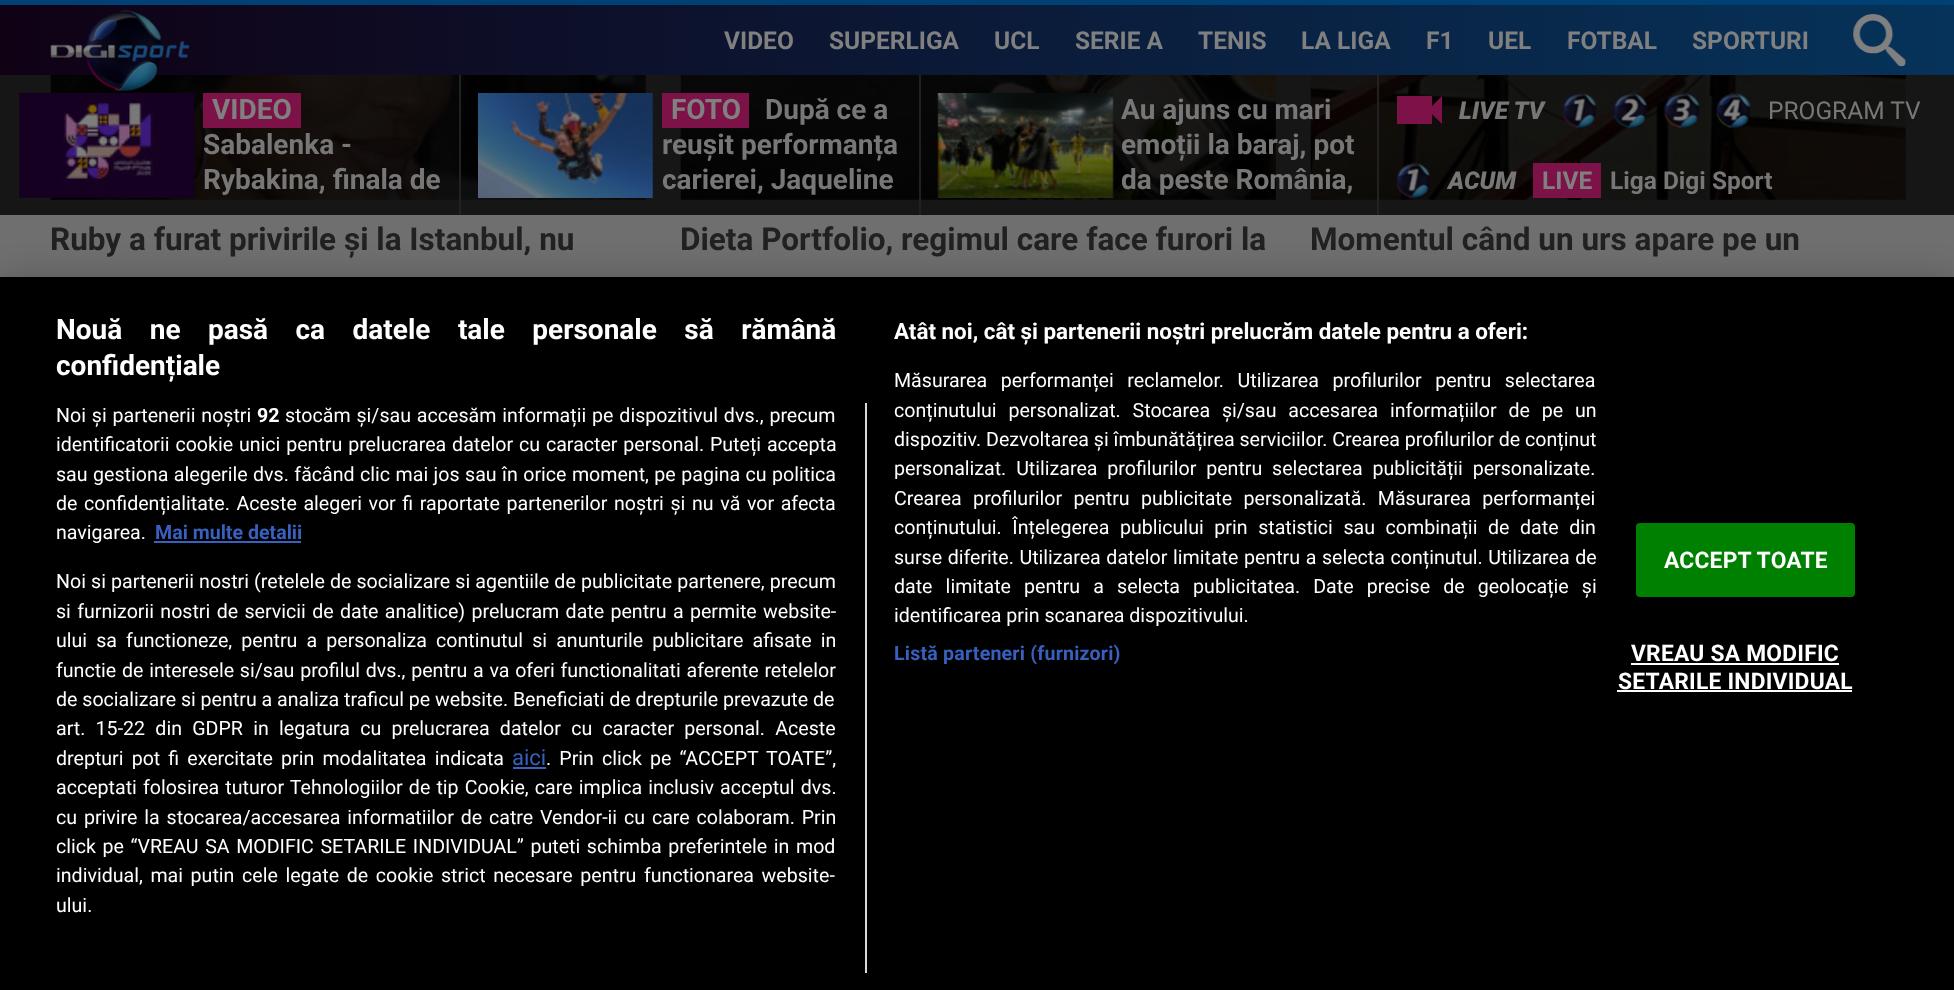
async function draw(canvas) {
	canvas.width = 1954;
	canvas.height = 990;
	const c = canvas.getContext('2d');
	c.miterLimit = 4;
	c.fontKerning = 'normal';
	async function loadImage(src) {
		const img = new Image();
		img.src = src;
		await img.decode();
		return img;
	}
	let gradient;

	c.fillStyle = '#6f6f6f';
	c.fillRect(0, 0, 1954, 990);
	c.fillStyle = '#004175';
	c.fillRect(0, 0, 1954, 5);
	gradient = c.createLinearGradient(0, 40, 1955, 40);
	gradient.addColorStop(0, '#100115');
	gradient.addColorStop(1, '#06335a');
	c.fillStyle = gradient;
	c.fillRect(0, 5, 1954, 70);
	c.drawImage(await loadImage('img11.png'), 50, 75, 596, 125);
	c.drawImage(await loadImage('img12.png'), 680, 75, 596, 125);
	c.drawImage(await loadImage('img13.png'), 1310, 75, 596, 125);
	c.fillStyle = '#000000cc';
	c.fillRect(0, 75, 1954, 140);
	c.drawImage(await loadImage('img1.png'), 50, 10, 140, 81);
	c.font = 'bold 24.5px Roboto';
	c.fillStyle = '#808080';
	for (const [text, x, y] of [
		['VIDEO', 724, 49],
		['SUPERLIGA', 829, 49],
		['UCL', 994, 49],
		['SERIE A', 1075, 49],
		['TENIS', 1198, 49],
		['LA LIGA', 1301, 49],
		['F1', 1426, 49],
		['UEL', 1488, 49],
		['FOTBAL', 1567, 49],
		['SPORTURI', 1692, 49],
	]) {
		c.fillText(text, x, y);
	}
	c.drawImage(await loadImage('img2.png'), 1853, 14, 54, 53);
	c.drawImage(await loadImage('img3.png'), 19, 92, 176, 106);
	c.fillStyle = '#7c1247';
	c.fillRect(203, 93, 98, 35);
	c.font = 'bold 28px Roboto';
	c.fillStyle = '#808080';
	c.fillText('VIDEO', 212, 119);
	c.fillStyle = '#777';
	c.fillText('Sabalenka -', 203, 154);
	c.fillText('Rybakina, finala de', 203, 189);
	c.fillStyle = '#212121';
	c.fillRect(459, 75, 2, 140);
	c.drawImage(await loadImage('img4.png'), 478, 93, 175, 105);
	c.fillStyle = '#7c1247';
	c.fillRect(662, 93, 87, 35);
	c.fillStyle = '#808080';
	c.fillText('FOTO', 671, 119);
	c.fillStyle = '#777';
	for (const [text, x, y] of [
		['După ce a', 765, 119],
		['reușit performanța', 662, 154],
		['carierei, Jaqueline', 662, 189],
	]) {
		c.fillText(text, x, y);
	}
	c.fillStyle = '#212121';
	c.fillRect(919, 75, 2, 140);
	c.drawImage(await loadImage('img5.png'), 937, 93, 177, 105);
	c.fillStyle = '#777';
	for (const [text, x, y] of [
		['Au ajuns cu mari', 1121, 119],
		['emoții la baraj, pot', 1121, 154],
		['da peste România,', 1121, 189],
	]) {
		c.fillText(text, x, y);
	}
	c.fillStyle = '#212121';
	c.fillRect(1377, 75, 2, 140);
	c.fillStyle = '#7c1247';
	c.fillRect(1397, 96, 35, 28);
	c.beginPath();
	c.moveTo(1442, 96);
	c.lineTo(1442, 124);
	c.lineTo(1428, 110);
	c.closePath();
	c.fill();
	c.font = 'italic 900 24.5px Roboto';
	c.fillStyle = '#777';
	c.fillText('LIVE TV', 1459, 119);
	c.drawImage(await loadImage('img6.png'), 1562, 92, 35, 36);
	c.drawImage(await loadImage('img7.png'), 1613, 92, 35, 36);
	c.drawImage(await loadImage('img8.png'), 1663, 92, 37, 36);
	c.drawImage(await loadImage('img9.png'), 1716, 92, 35, 36);
	c.font = '24.5px Roboto';
	c.fillText('PROGRAM TV', 1768, 119);
	c.drawImage(await loadImage('img10.png'), 1396, 162, 35, 36);
	c.font = 'italic 900 24.5px Roboto';
	c.fillText('ACUM', 1448, 189);
	c.fillStyle = '#7c1247';
	c.fillRect(1533, 163, 68, 35);
	c.font = 'bold 24.5px Roboto';
	c.fillStyle = '#808080';
	c.fillText('LIVE', 1542, 189);
	c.fillStyle = '#777';
	c.fillText('Liga Digi Sport', 1610, 189);
	c.font = 'bold 31.5px Roboto';
	c.fillStyle = '#212121';
	for (const [text, x, y] of [
		['Ruby a furat privirile și la Istanbul, nu', 50, 250],
		['Dieta Portfolio, regimul care face furori la', 680, 250],
		['Momentul când un urs apare pe un', 1310, 250],
	]) {
		c.fillText(text, x, y);
	}
	c.fillStyle = '#00000033';
	c.filter = 'blur(16px)';
	c.beginPath();
	c.rect(0, 277, 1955, 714);
	c.fill();
	c.filter = 'none';
	c.fillStyle = '#000';
	c.fillRect(0, 277, 1954, 713);
	c.wordSpacing = '20.5px';
	c.font = 'bold 28px Roboto';
	c.fillStyle = '#fff';
	c.fillText('Nouă ne pasă ca datele tale personale să rămână', 56, 339);
	c.wordSpacing = '0px';
	c.fillText('confidențiale', 56, 375);
	c.font = 'bold 22.4px Roboto';
	c.fillText('Atât noi, cât și partenerii noștri prelucrăm datele pentru a oferi:', 894, 339);
	c.wordSpacing = '8.75px';
	c.font = '19.6px Roboto';
	c.fillText('Măsurarea performanței reclamelor. Utilizarea profilurilor pentru selectarea', 894, 387);
	c.wordSpacing = '7px';
	c.fillText('conținutului personalizat. Stocarea și/sau accesarea informațiilor de pe un', 894, 417);
	c.wordSpacing = '0px';
	c.fillText('dispozitiv. Dezvoltarea și îmbunătățirea serviciilor. Crearea profilurilor de conținut', 894, 446);
	c.wordSpacing = '5px';
	c.fillText('personalizat. Utilizarea profilurilor pentru selectarea publicității personalizate.', 894, 475);
	c.wordSpacing = '6.5px';
	c.fillText('Crearea profilurilor pentru publicitate personalizată. Măsurarea performanței', 894, 505);
	c.wordSpacing = '5.75px';
	c.fillText('conținutului. Înțelegerea publicului prin statistici sau combinații de date din', 894, 534);
	c.wordSpacing = '0.75px';
	c.fillText('surse diferite. Utilizarea datelor limitate pentru a selecta conținutul. Utilizarea de', 894, 564);
	c.wordSpacing = '8.25px';
	c.fillText('date limitate pentru a selecta publicitatea. Date precise de geolocație și', 894, 593);
	c.wordSpacing = '0px';
	c.fillText('identificarea prin scanarea dispozitivului.', 894, 622);
	c.letterSpacing = '0.2px';
	c.font = 'bold 19.6px Roboto';
	c.fillStyle = '#3860be';
	c.fillText('Listă parteneri (furnizori)', 894, 660);
	c.fillStyle = '#d8d8d8';
	c.fillRect(865, 403, 2, 570);
	c.letterSpacing = '0px';
	c.wordSpacing = '1px';
	c.font = '19.6px Roboto';
	c.fillStyle = '#fff';
	c.fillText('Noi și partenerii noștri', 56, 422);
	c.wordSpacing = '0px';
	c.font = 'bold 19.6px Roboto';
	c.fillText('92', 257, 422);
	c.wordSpacing = '1px';
	c.font = '19.6px Roboto';
	c.fillText('stocăm și/sau accesăm informații pe dispozitivul dvs., precum', 285, 422);
	c.fillText('identificatorii cookie unici pentru prelucrarea datelor cu caracter personal. Puteți accepta', 56, 451);
	c.wordSpacing = '0.6px';
	c.fillText('sau gestiona alegerile dvs. făcând clic mai jos sau în orice moment, pe pagina cu politica', 56, 481);
	c.wordSpacing = '1.75px';
	c.fillText('de confidențialitate. Aceste alegeri vor fi raportate partenerilor noștri și nu vă vor afecta', 56, 510);
	c.wordSpacing = '0px';
	c.fillText('navigarea.', 56, 539);
	c.font = 'bold 19.6px Roboto';
	c.fillStyle = '#3860be';
	c.fillText('Mai multe detalii', 155, 539);
	c.fillRect(154, 541, 147, 2);
	c.wordSpacing = '0.25px';
	c.font = '19.6px Roboto';
	c.fillStyle = '#fff';
	c.fillText('Noi si partenerii nostri (retelele de socializare si agentiile de publicitate partenere, precum', 56, 588);
	c.wordSpacing = '1.5px';
	c.fillText('si furnizorii nostri de servicii de date analitice) prelucram date pentru a permite website-', 56, 618);
	c.wordSpacing = '4.25px';
	c.fillText('ului sa functioneze, pentru a personaliza continutul si anunturile publicitare afisate in', 56, 647);
	c.wordSpacing = '0.9px';
	c.fillText('functie de interesele si/sau profilul dvs., pentru a va oferi functionalitati aferente retelelor', 56, 677);
	c.wordSpacing = '0px';
	c.fillText('de socializare si pentru a analiza traficul pe website. Beneficiati de drepturile prevazute de', 56, 706);
	c.wordSpacing = '5.4px';
	c.fillText('art. 15-22 din GDPR in legatura cu prelucrarea datelor cu caracter personal. Aceste', 56, 735);
	c.wordSpacing = '3.25px';
	c.fillText('drepturi pot fi exercitate prin modalitatea indicata', 56, 765);
	c.wordSpacing = '0px';
	c.font = '22px Roboto';
	c.fillStyle = '#3860be';
	c.fillText('aici', 512, 765);
	c.fillRect(513, 767, 33, 2);
	c.wordSpacing = '3.25px';
	c.font = '19.6px Roboto';
	c.fillStyle = '#fff';
	c.fillText('. Prin click pe “ACCEPT TOATE”,', 546, 765);
	c.wordSpacing = '1.25px';
	c.fillText('acceptati folosirea tuturor Tehnologiilor de tip Cookie, care implica inclusiv acceptul dvs.', 56, 794);
	c.wordSpacing = '2px';
	c.fillText('cu privire la stocarea/accesarea informatiilor de catre Vendor-ii cu care colaboram. Prin', 56, 824);
	c.wordSpacing = '1.75px';
	c.fillText('click pe “VREAU SA MODIFIC SETARILE INDIVIDUAL” puteti schimba preferintele in mod', 56, 853);
	c.wordSpacing = '2.75px';
	c.fillText('individual, mai putin cele legate de cookie strict necesare pentru functionarea website-', 56, 882);
	c.wordSpacing = '0px';
	c.fillText('ului.', 56, 912);
	c.fillStyle = '#008000';
	c.beginPath();
	c.roundRect(1637, 524, 217, 72, 3);
	c.fill();
	c.strokeStyle = '#008000';
	c.lineWidth = 2;
	c.stroke();
	c.letterSpacing = '0.25px';
	c.font = 'bold 22.75px Roboto';
	c.fillStyle = '#fff';
	c.fillText('ACCEPT TOATE', 1664, 568);
	c.fillText('VREAU SA MODIFIC', 1631, 661);
	c.fillRect(1631, 663, 208, 2);
	c.fillText('SETARILE INDIVIDUAL', 1618, 689);
	c.fillRect(1617, 690, 235, 2);
}

draw(document.querySelector('canvas'));
